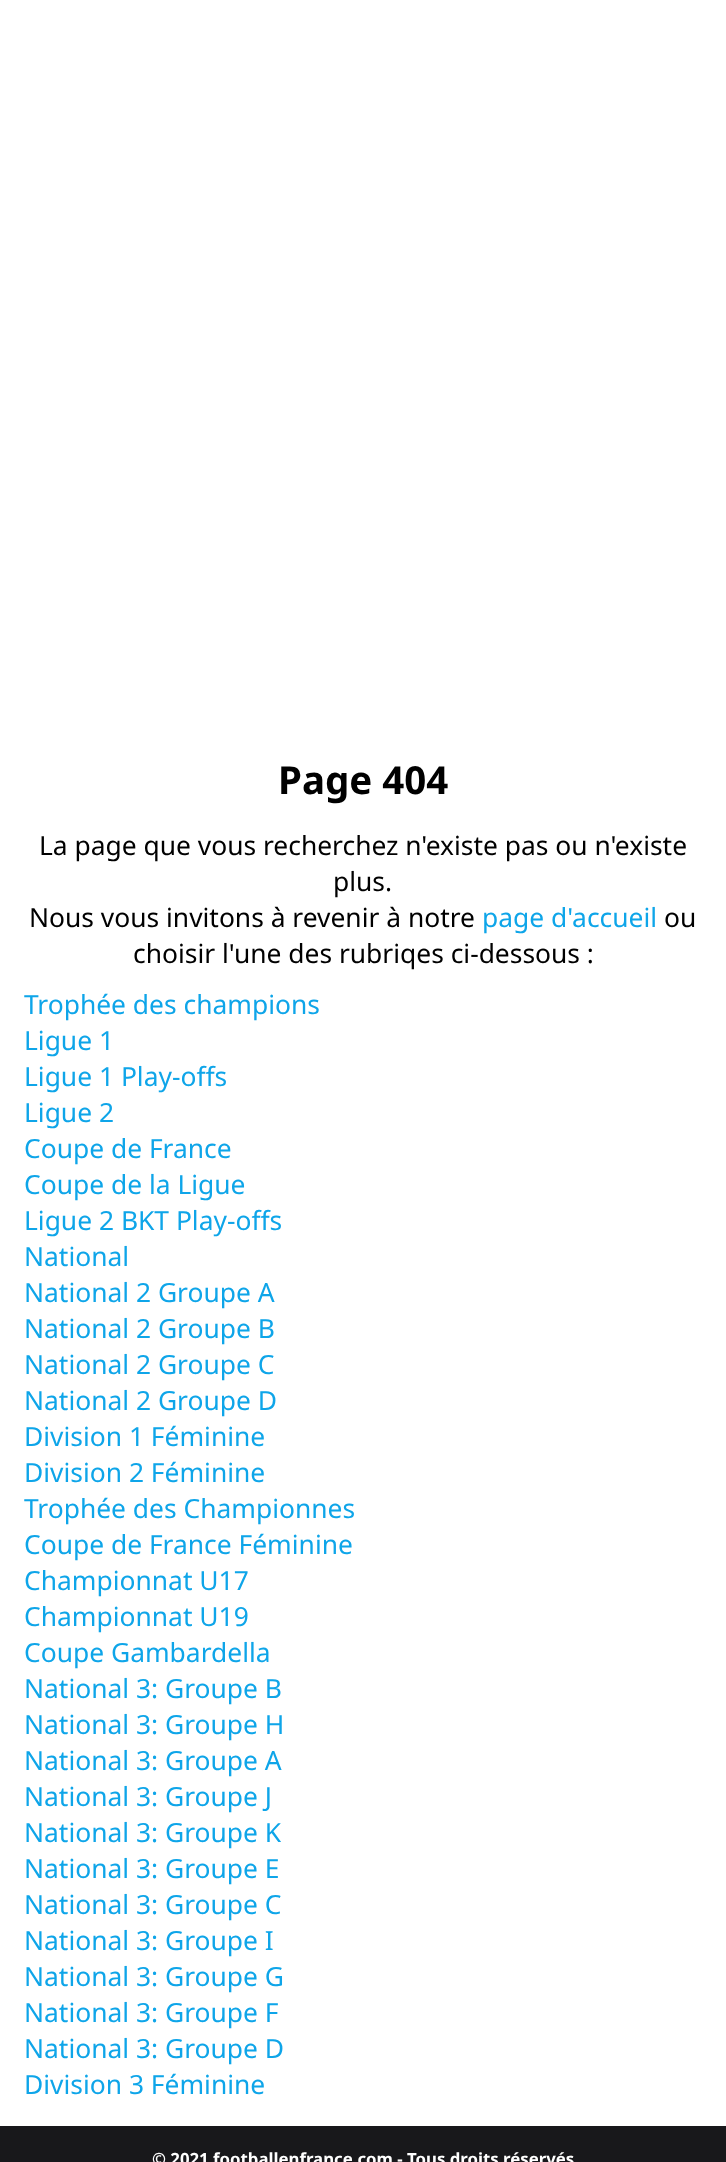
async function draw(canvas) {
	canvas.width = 726;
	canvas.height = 2162;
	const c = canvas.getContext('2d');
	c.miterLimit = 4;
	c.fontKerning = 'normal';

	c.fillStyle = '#fff';
	c.fillRect(0, 0, 726, 2162);
	c.font = 'bold 38.5px Noto Sans';
	c.fillStyle = '#000';
	c.fillText('Page 404', 278, 794);
	c.font = '26.4px Noto Sans';
	for (const [text, x, y] of [
		['La page que vous recherchez n\'existe pas ou n\'existe', 39, 855],
		['plus.', 333, 891],
		['Nous vous invitons à revenir à notre', 29, 927],
	]) {
		c.fillText(text, x, y);
	}
	c.fillStyle = '#0ea5e9';
	c.fillText('page d\'accueil', 482, 927);
	c.fillStyle = '#000';
	c.fillText('ou', 664, 927);
	c.fillText('choisir l\'une des rubriqes ci-dessous :', 133, 963);
	c.fillStyle = '#0ea5e9';
	for (const [text, x, y] of [
		['Trophée des champions', 24, 1014],
		['Ligue 1', 24, 1050],
		['Ligue 1 Play-offs', 24, 1086],
		['Ligue 2', 24, 1122],
		['Coupe de France', 24, 1158],
		['Coupe de la Ligue', 24, 1194],
		['Ligue 2 BKT Play-offs', 24, 1230],
		['National', 24, 1266],
		['National 2 Groupe A', 24, 1302],
		['National 2 Groupe B', 24, 1338],
		['National 2 Groupe C', 24, 1374],
		['National 2 Groupe D', 24, 1410],
		['Division 1 Féminine', 24, 1446],
		['Division 2 Féminine', 24, 1482],
		['Trophée des Championnes', 24, 1518],
		['Coupe de France Féminine', 24, 1554],
		['Championnat U17', 24, 1590],
		['Championnat U19', 24, 1626],
		['Coupe Gambardella', 24, 1662],
		['National 3: Groupe B', 24, 1698],
		['National 3: Groupe H', 24, 1734],
		['National 3: Groupe A', 24, 1770],
		['National 3: Groupe J', 24, 1806],
		['National 3: Groupe K', 24, 1842],
		['National 3: Groupe E', 24, 1878],
		['National 3: Groupe C', 24, 1914],
		['National 3: Groupe I', 24, 1950],
		['National 3: Groupe G', 24, 1986],
		['National 3: Groupe F', 24, 2022],
		['National 3: Groupe D', 24, 2058],
		['Division 3 Féminine', 24, 2094],
	]) {
		c.fillText(text, x, y);
	}
	c.fillStyle = '#18181b';
	c.fillRect(0, 2126, 726, 36);
	c.font = 'bold 16.8px Noto Sans';
	c.fillStyle = '#fff';
	c.fillText('© 2021 footballenfrance.com - Tous droits réservés', 152, 2165);
}

draw(document.querySelector('canvas'));
